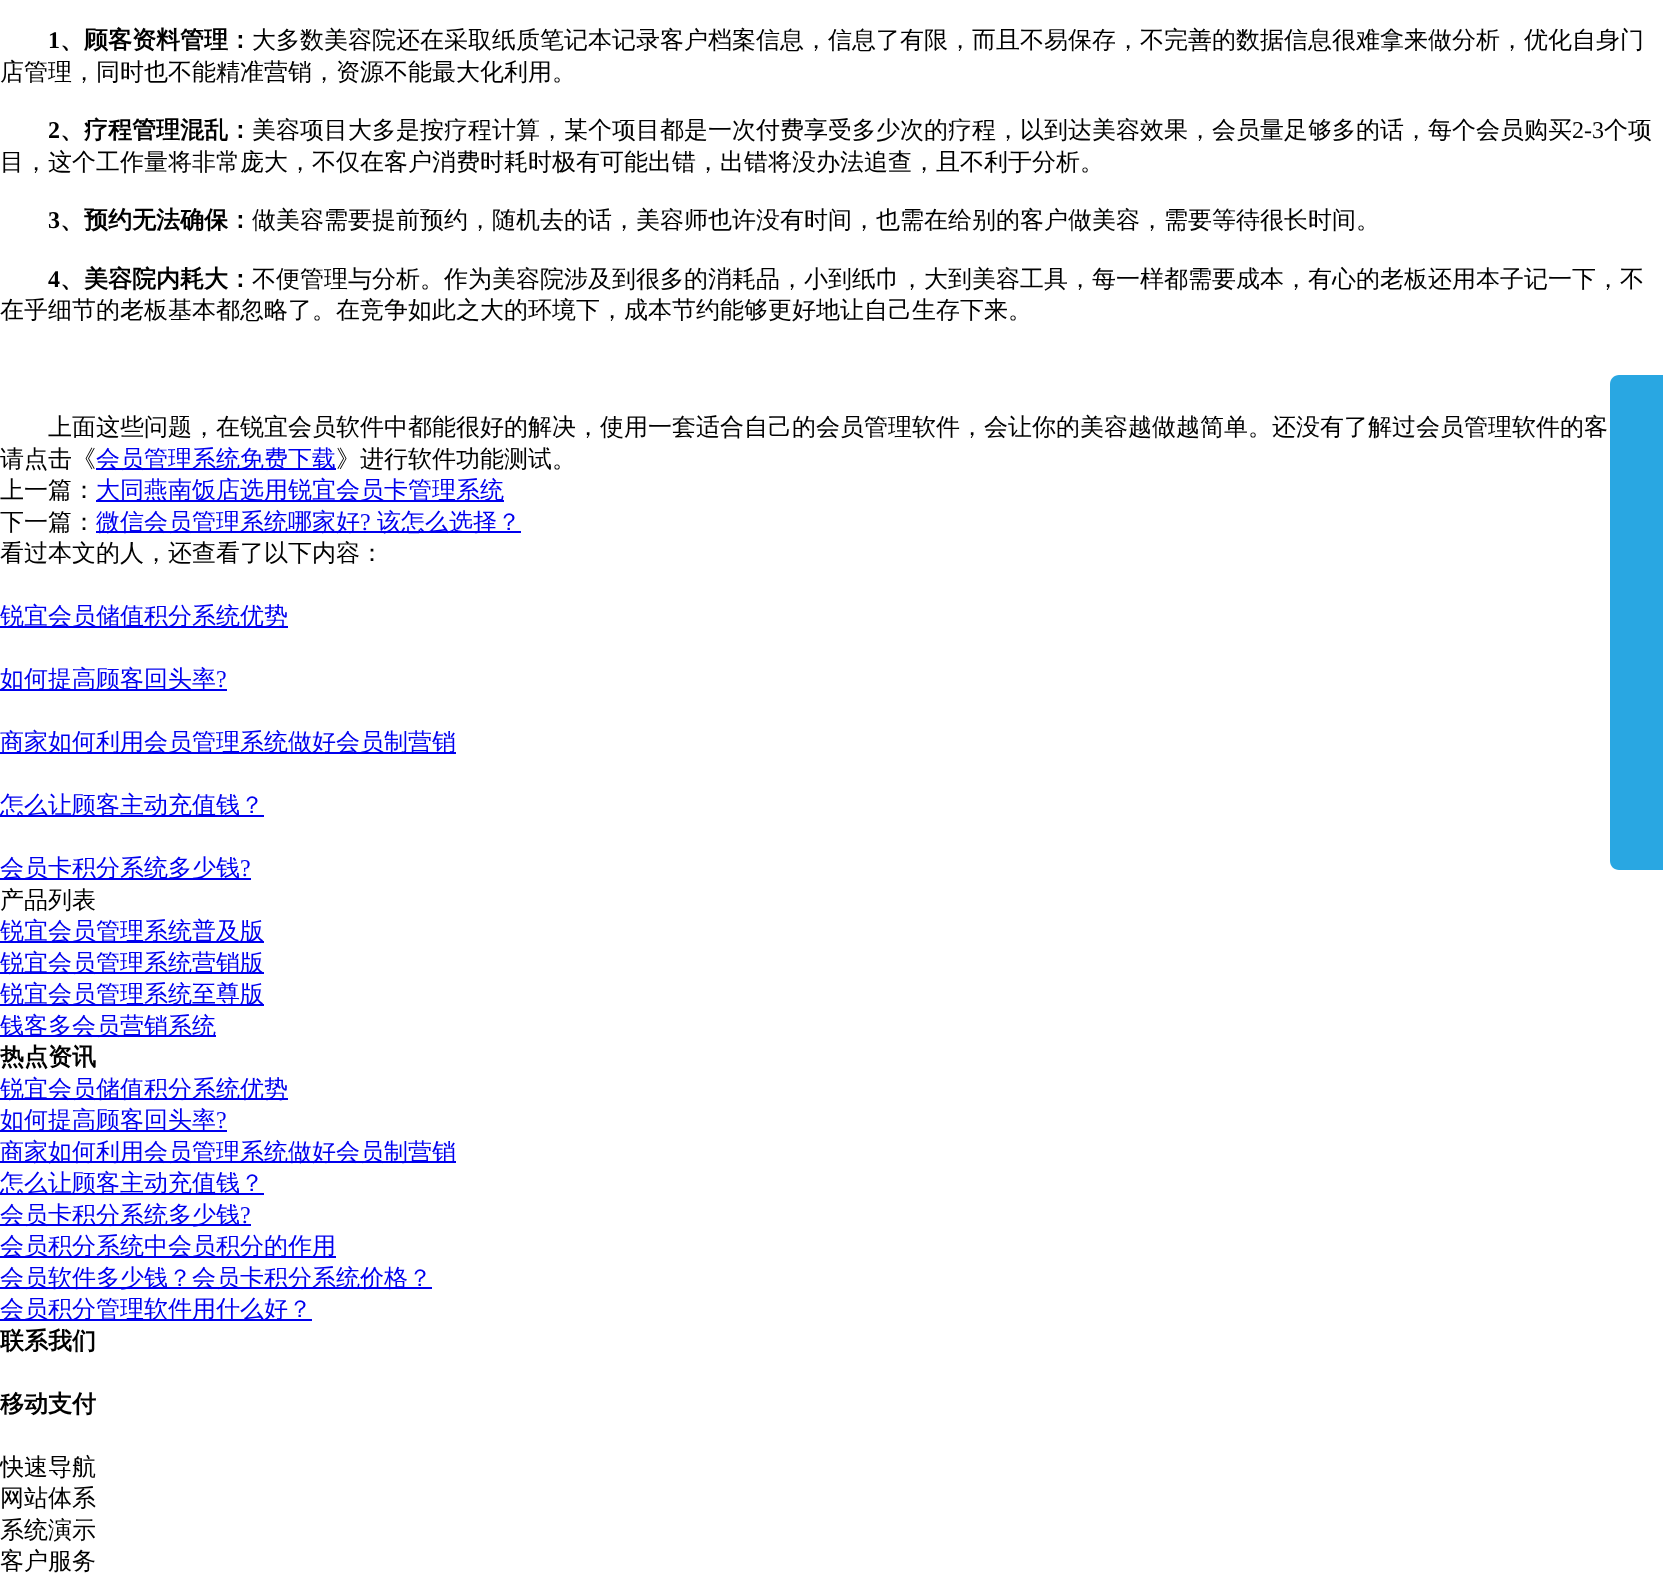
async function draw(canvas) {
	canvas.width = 1663;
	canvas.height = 1573;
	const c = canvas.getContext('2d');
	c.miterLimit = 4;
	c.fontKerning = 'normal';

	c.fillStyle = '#fff';
	c.fillRect(0, 0, 1663, 1573);
	c.font = 'bold 24px Liberation Serif';
	c.fillStyle = '#000';
	c.fillText('1', 48, 48);
	c.font = 'bold 24px WenQuanYi Zen Hei';
	c.fillText('、顾客资料管理：', 60, 48);
	c.font = '500 24px WenQuanYi Zen Hei';
	c.fillText('大多数美容院还在采取纸质笔记本记录客户档案信息，信息了有限，而且不易保存，不完善的数据信息很难拿来做分析，优化自身门', 252, 48);
	c.fillText('店管理，同时也不能精准营销，资源不能最大化利用。', 0, 80);
	c.font = 'bold 24px Liberation Serif';
	c.fillText('2', 48, 138);
	c.font = 'bold 24px WenQuanYi Zen Hei';
	c.fillText('、疗程管理混乱：', 60, 138);
	c.font = '500 24px WenQuanYi Zen Hei';
	c.fillText('美容项目大多是按疗程计算，某个项目都是一次付费享受多少次的疗程，以到达美容效果，会员量足够多的话，每个会员购买', 252, 138);
	c.font = '24px Liberation Serif';
	c.fillText('2-3', 1572, 138);
	c.font = '500 24px WenQuanYi Zen Hei';
	c.fillText('个项', 1604, 138);
	c.fillText('目，这个工作量将非常庞大，不仅在客户消费时耗时极有可能出错，出错将没办法追查，且不利于分析。', 0, 170);
	c.font = 'bold 24px Liberation Serif';
	c.fillText('3', 48, 228);
	c.font = 'bold 24px WenQuanYi Zen Hei';
	c.fillText('、预约无法确保：', 60, 228);
	c.font = '500 24px WenQuanYi Zen Hei';
	c.fillText('做美容需要提前预约，随机去的话，美容师也许没有时间，也需在给别的客户做美容，需要等待很长时间。', 252, 228);
	c.font = 'bold 24px Liberation Serif';
	c.fillText('4', 48, 287);
	c.font = 'bold 24px WenQuanYi Zen Hei';
	c.fillText('、美容院内耗大：', 60, 287);
	c.font = '500 24px WenQuanYi Zen Hei';
	for (const [text, x, y] of [
		['不便管理与分析。作为美容院涉及到很多的消耗品，小到纸巾，大到美容工具，每一样都需要成本，有心的老板还用本子记一下，不', 252, 287],
		['在乎细节的老板基本都忽略了。在竞争如此之大的环境下，成本节约能够更好地让自己生存下来。', 0, 318],
		['上面这些问题，在锐宜会员软件中都能很好的解决，使用一套适合自己的会员管理软件，会让你的美容越做越简单。还没有了解过会员管理软件的客', 48, 435],
		['请点击《', 0, 467],
	]) {
		c.fillText(text, x, y);
	}
	c.fillStyle = '#00e';
	c.fillRect(96, 468, 240, 2);
	c.fillText('会员管理系统免费下载', 96, 467);
	c.fillStyle = '#000';
	c.fillText('》进行软件功能测试。', 336, 467);
	c.fillText('上一篇：', 0, 498);
	c.fillStyle = '#00e';
	c.fillRect(96, 500, 408, 2);
	c.fillText('大同燕南饭店选用锐宜会员卡管理系统', 96, 498);
	c.fillStyle = '#000';
	c.fillText('下一篇：', 0, 530);
	c.fillStyle = '#00e';
	c.fillRect(96, 531, 425, 2);
	c.fillText('微信会员管理系统哪家好', 96, 530);
	c.font = '24px Liberation Serif';
	c.fillText('?', 360, 530);
	c.font = '500 24px WenQuanYi Zen Hei';
	c.fillText('该怎么选择？', 377, 530);
	c.fillStyle = '#000';
	c.fillText('看过本文的人，还查看了以下内容：', 0, 561);
	c.fillStyle = '#00e';
	c.fillRect(0, 626, 288, 2);
	c.fillText('锐宜会员储值积分系统优势', 0, 624);
	c.fillRect(0, 689, 227, 2);
	c.fillText('如何提高顾客回头率', 0, 687);
	c.font = '24px Liberation Serif';
	c.fillText('?', 216, 687);
	c.fillRect(0, 752, 456, 2);
	c.font = '500 24px WenQuanYi Zen Hei';
	c.fillText('商家如何利用会员管理系统做好会员制营销', 0, 750);
	c.fillRect(0, 815, 264, 2);
	c.fillText('怎么让顾客主动充值钱？', 0, 813);
	c.fillRect(0, 878, 251, 2);
	c.fillText('会员卡积分系统多少钱', 0, 876);
	c.font = '24px Liberation Serif';
	c.fillText('?', 240, 876);
	c.font = '500 24px WenQuanYi Zen Hei';
	c.fillStyle = '#000';
	c.fillText('产品列表', 0, 908);
	c.fillStyle = '#00e';
	c.fillRect(0, 941, 264, 2);
	c.fillText('锐宜会员管理系统普及版', 0, 939);
	c.fillRect(0, 972, 264, 2);
	c.fillText('锐宜会员管理系统营销版', 0, 971);
	c.fillRect(0, 1004, 264, 2);
	c.fillText('锐宜会员管理系统至尊版', 0, 1002);
	c.fillRect(0, 1035, 216, 2);
	c.fillText('钱客多会员营销系统', 0, 1034);
	c.font = 'bold 24px WenQuanYi Zen Hei';
	c.fillStyle = '#000';
	c.fillText('热点资讯', 0, 1065);
	c.fillStyle = '#00e';
	c.fillRect(0, 1098, 288, 2);
	c.font = '500 24px WenQuanYi Zen Hei';
	c.fillText('锐宜会员储值积分系统优势', 0, 1097);
	c.fillRect(0, 1130, 227, 2);
	c.fillText('如何提高顾客回头率', 0, 1128);
	c.font = '24px Liberation Serif';
	c.fillText('?', 216, 1128);
	c.fillRect(0, 1161, 456, 2);
	c.font = '500 24px WenQuanYi Zen Hei';
	c.fillText('商家如何利用会员管理系统做好会员制营销', 0, 1160);
	c.fillRect(0, 1193, 264, 2);
	c.fillText('怎么让顾客主动充值钱？', 0, 1191);
	c.fillRect(0, 1224, 251, 2);
	c.fillText('会员卡积分系统多少钱', 0, 1223);
	c.font = '24px Liberation Serif';
	c.fillText('?', 240, 1223);
	c.fillRect(0, 1256, 336, 2);
	c.font = '500 24px WenQuanYi Zen Hei';
	c.fillText('会员积分系统中会员积分的作用', 0, 1254);
	c.fillRect(0, 1287, 432, 2);
	c.fillText('会员软件多少钱？会员卡积分系统价格？', 0, 1286);
	c.fillRect(0, 1319, 312, 2);
	c.fillText('会员积分管理软件用什么好？', 0, 1317);
	c.font = 'bold 24px WenQuanYi Zen Hei';
	c.fillStyle = '#000';
	c.fillText('联系我们', 0, 1349);
	c.fillText('移动支付', 0, 1412);
	c.fillStyle = '#29a7e2';
	c.beginPath();
	c.moveTo(1619, 375);
	c.lineTo(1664, 375);
	c.lineTo(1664, 870);
	c.lineTo(1619, 870);
	c.bezierCurveTo(1614, 870, 1610, 866, 1610, 861);
	c.lineTo(1610, 384);
	c.bezierCurveTo(1610, 379, 1614, 375, 1619, 375);
	c.closePath();
	c.fill();
	c.font = '500 24px WenQuanYi Zen Hei';
	c.fillStyle = '#000';
	for (const [text, x, y] of [
		['快速导航', 0, 1475],
		['网站体系', 0, 1506],
		['系统演示', 0, 1538],
		['客户服务', 0, 1569],
	]) {
		c.fillText(text, x, y);
	}
}

draw(document.querySelector('canvas'));
